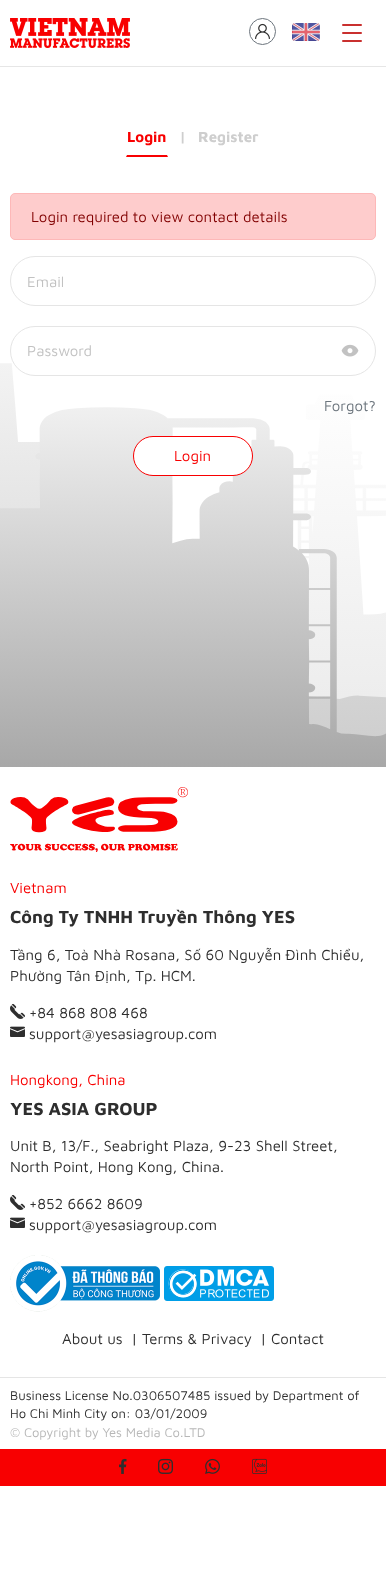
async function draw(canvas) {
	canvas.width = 386;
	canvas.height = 1596;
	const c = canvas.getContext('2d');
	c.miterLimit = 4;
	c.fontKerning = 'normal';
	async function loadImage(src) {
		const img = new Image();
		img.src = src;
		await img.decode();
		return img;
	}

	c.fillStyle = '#fff';
	c.fillRect(0, 0, 386, 1596);
	c.fillStyle = '#e6e6e6';
	c.fillRect(0, 66, 386, 1);
	c.drawImage(await loadImage('img1.png'), 10, 18, 120, 30);
	c.beginPath();
	c.arc(262.5, 31.5, 13, 0, 2 * Math.PI);
	c.strokeStyle = '#6c757d';
	c.stroke();
	c.drawImage(await loadImage('img2.png'), 255, 23, 15, 16);
	c.drawImage(await loadImage('img3.png'), 292, 23, 28, 18);
	c.fillStyle = '#c9302f';
	c.beginPath();
	c.roundRect(342, 24, 20, 2, 1);
	c.fill();
	c.beginPath();
	c.roundRect(342, 32, 20, 2, 1);
	c.fill();
	c.beginPath();
	c.roundRect(342, 40, 20, 2, 1);
	c.fill();
	c.drawImage(await loadImage('img4.png'), 0, 363, 386, 404);
	c.fillStyle = '#f80001';
	c.beginPath();
	c.moveTo(168, 157);
	c.lineTo(167, 155);
	c.lineTo(127, 155);
	c.lineTo(126, 157);
	c.closePath();
	c.fill();
	c.font = 'bold 15px Maven Pro';
	c.fillText('Login', 127, 142);
	c.fillStyle = '#cecece';
	c.fillText('|', 179, 142);
	c.fillText('Register', 198, 142);
	c.fillStyle = '#fecccc';
	c.beginPath();
	c.roundRect(10.5, 193.5, 365, 46, 4.5);
	c.fill();
	c.strokeStyle = '#fdb8b8';
	c.stroke();
	c.font = '15px Maven Pro';
	c.fillStyle = '#810001';
	c.fillText('Login required to view contact details', 31, 222);
	c.beginPath();
	c.roundRect(10.5, 256.5, 365, 49, 24.5);
	c.strokeStyle = '#e5e5e5';
	c.stroke();
	c.fillStyle = '#c2c2c2';
	c.fillText('Email', 27, 287);
	c.beginPath();
	c.roundRect(10.5, 326.5, 365, 49, 24.5);
	c.stroke();
	c.fillText('Password', 27, 356);
	c.drawImage(await loadImage('img5.png'), 341, 344, 18, 13);
	c.fillStyle = '#6c757d';
	c.fillText('Forgot?', 324, 411);
	c.fillStyle = '#fff';
	c.beginPath();
	c.roundRect(133.5, 436.5, 119, 39, 19.5);
	c.fill();
	c.strokeStyle = '#f80001';
	c.stroke();
	c.fillStyle = '#f80001';
	c.fillText('Login', 174, 461);
	c.drawImage(await loadImage('img6.png'), 10, 787, 178, 65);
	c.fillText('Vietnam', 10, 893);
	c.font = 'bold 18px Maven Pro';
	c.fillStyle = '#2e2e2e';
	c.fillText('Công Ty TNHH Truyền Thông YES', 10, 923);
	c.font = '15px Maven Pro';
	c.fillText('Tầng 6, Toà Nhà Rosana, Số 60 Nguyễn Đình Chiểu,', 10, 960);
	c.fillText('Phường Tân Định, Tp. HCM.', 10, 981);
	c.drawImage(await loadImage('img7.png'), 10, 1004, 15, 15);
	c.fillText('+84 868 808 468', 29, 1018);
	c.drawImage(await loadImage('img8.png'), 10, 1026, 15, 11);
	c.fillText('support@yesasiagroup.com', 29, 1039);
	c.fillStyle = '#f80001';
	c.fillText('Hongkong, China', 10, 1085);
	c.font = 'bold 18px Maven Pro';
	c.fillStyle = '#2e2e2e';
	c.fillText('YES ASIA GROUP', 10, 1115);
	c.font = '15px Maven Pro';
	c.fillText('Unit B, 13/F., Seabright Plaza, 9-23 Shell Street,', 10, 1151);
	c.fillText('North Point, Hong Kong, China.', 10, 1172);
	c.drawImage(await loadImage('img7.png'), 10, 1195, 15, 15);
	c.fillText('+852 6662 8609', 29, 1209);
	c.drawImage(await loadImage('img8.png'), 10, 1217, 15, 11);
	c.fillText('support@yesasiagroup.com', 29, 1230);
	c.drawImage(await loadImage('img9.png'), 10, 1255, 150, 57);
	c.drawImage(await loadImage('img10.png'), 164, 1266, 110, 35);
	for (const [text, x, y] of [
		['About us', 62, 1344],
		['| Terms & Privacy', 131, 1344],
		['| Contact', 260, 1344],
	]) {
		c.fillText(text, x, y);
	}
	c.fillStyle = '#e5e5e5';
	c.fillRect(0, 1377, 386, 1);
	c.font = '13px Maven Pro';
	c.fillStyle = '#2e2e2e';
	c.fillText('Business License No.0306507485 issued by Department of', 10, 1400);
	c.fillText('Ho Chi Minh City on: 03/01/2009', 10, 1418);
	c.fillStyle = '#b7b7b7';
	c.fillText('© Copyright by Yes Media Co.LTD', 10, 1437);
	c.fillStyle = '#f80001';
	c.fillRect(0, 1449, 386, 37);
	c.drawImage(await loadImage('img11.png'), 119, 1458, 8, 16);
	c.drawImage(await loadImage('img12.png'), 158, 1458, 15, 16);
	c.drawImage(await loadImage('img13.png'), 205, 1458, 15, 16);
	c.drawImage(await loadImage('img14.png'), 252, 1458, 15, 16);
}

draw(document.querySelector('canvas'));
